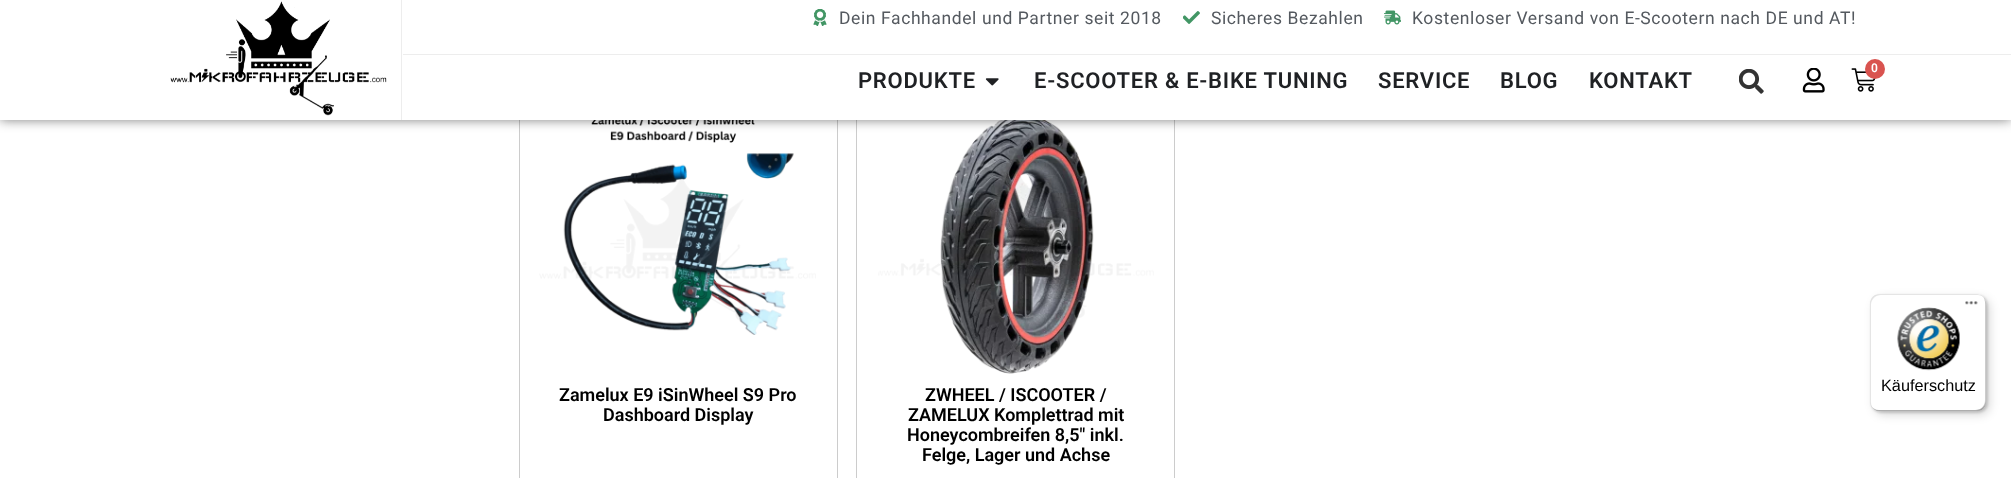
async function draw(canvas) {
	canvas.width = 2011;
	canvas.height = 478;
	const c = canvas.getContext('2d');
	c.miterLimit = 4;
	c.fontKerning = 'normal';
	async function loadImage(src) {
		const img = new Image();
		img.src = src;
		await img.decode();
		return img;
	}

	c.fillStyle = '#fff';
	c.fillRect(0, 0, 2011, 478);
	c.strokeStyle = '#ccc';
	c.strokeRect(519.5, 85.5, 318, 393);
	c.drawImage(await loadImage('img11.png'), 539, 120, 277, 215);
	c.strokeRect(856.5, 85.5, 318, 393);
	c.drawImage(await loadImage('img12.png'), 878, 120, 276, 254);
	c.fillStyle = '#00000080';
	c.filter = 'blur(6px)';
	c.beginPath();
	c.rect(0, -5, 2011, 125);
	c.fill();
	c.filter = 'none';
	c.fillStyle = '#fff';
	c.fillRect(0, 0, 2011, 120);
	c.fillStyle = '#ededed';
	c.fillRect(401, 0, 1, 120);
	c.drawImage(await loadImage('img1.png'), 170, 1, 217, 115);
	c.drawImage(await loadImage('img2.png'), 813, 9, 14, 17);
	c.letterSpacing = '0.6px';
	c.font = '17.5px Roboto';
	c.fillStyle = '#54595f';
	c.fillText('Dein Fachhandel und Partner seit 2018', 839, 24);
	c.drawImage(await loadImage('img3.png'), 1183, 11, 17, 13);
	c.fillText('Sicheres Bezahlen', 1211, 24);
	c.drawImage(await loadImage('img4.png'), 1384, 10, 17, 15);
	c.fillText('Kostenloser Versand von E-Scootern nach DE und AT!', 1412, 24);
	c.fillStyle = '#ededed';
	c.fillRect(403, 54, 1608, 1);
	c.letterSpacing = '0.75px';
	c.font = '600 22px Roboto';
	c.fillStyle = '#1f2124';
	c.fillText('PRODUKTE', 858, 88);
	c.drawImage(await loadImage('img5.png'), 985, 78, 14, 8);
	for (const [text, x, y] of [
		['E-SCOOTER & E-BIKE TUNING', 1034, 88],
		['SERVICE', 1378, 88],
		['BLOG', 1500, 88],
		['KONTAKT', 1589, 88],
	]) {
		c.fillText(text, x, y);
	}
	c.drawImage(await loadImage('img6.png'), 1739, 69, 25, 25);
	c.drawImage(await loadImage('img7.png'), 1802, 68, 23, 25);
	c.drawImage(await loadImage('img8.png'), 1851, 68, 25, 24);
	c.fillStyle = '#d9534f';
	c.beginPath();
	c.arc(1875, 69, 10, 0, 2 * Math.PI);
	c.fill();
	c.letterSpacing = '0px';
	c.font = '600 12px Roboto';
	c.fillStyle = '#fff';
	c.fillText('0', 1871, 72);
	c.fillStyle = '#00000026';
	c.filter = 'blur(5px)';
	c.beginPath();
	c.roundRect(1874, 298, 116, 117, 10);
	c.fill();
	c.filter = 'none';
	c.filter = 'blur(1px)';
	c.beginPath();
	c.roundRect(1871, 295, 117, 118, 10);
	c.fill();
	c.filter = 'none';
	c.fillStyle = '#fff';
	c.beginPath();
	c.roundRect(1870, 294, 116, 117, 10);
	c.fill();
	c.fillStyle = '#0000001a';
	c.beginPath();
	c.moveTo(1881, 295);
	c.lineTo(1978, 295);
	c.lineTo(1982, 296);
	c.bezierCurveTo(1980, 295, 1978, 294, 1976, 294);
	c.lineTo(1880, 294);
	c.bezierCurveTo(1874, 294, 1870, 298, 1870, 304);
	c.lineTo(1870, 401);
	c.bezierCurveTo(1870, 404, 1871, 407, 1873, 409);
	c.bezierCurveTo(1872, 407, 1871, 405, 1871, 402);
	c.lineTo(1871, 305);
	c.bezierCurveTo(1871, 299, 1876, 295, 1881, 295);
	c.closePath();
	c.fill();
	c.fillStyle = '#00000033';
	c.beginPath();
	c.moveTo(1874, 409);
	c.bezierCurveTo(1875, 410, 1878, 411, 1880, 411);
	c.lineTo(1976, 411);
	c.bezierCurveTo(1982, 411, 1986, 407, 1986, 401);
	c.lineTo(1986, 304);
	c.bezierCurveTo(1986, 302, 1985, 300, 1984, 298);
	c.lineTo(1985, 302);
	c.lineTo(1985, 400);
	c.bezierCurveTo(1985, 406, 1981, 410, 1975, 410);
	c.lineTo(1879, 410);
	c.bezierCurveTo(1877, 410, 1875, 410, 1874, 409);
	c.closePath();
	c.fill();
	c.drawImage(await loadImage('img9.png'), 1965, 301, 13, 4);
	c.fillStyle = '#32323233';
	c.beginPath();
	c.moveTo(1872, 407);
	c.bezierCurveTo(1874, 410, 1877, 411, 1880, 411);
	c.lineTo(1976, 411);
	c.bezierCurveTo(1982, 411, 1986, 407, 1986, 401);
	c.lineTo(1986, 400);
	c.bezierCurveTo(1986, 406, 1981, 410, 1976, 410);
	c.lineTo(1879, 410);
	c.bezierCurveTo(1877, 410, 1874, 409, 1872, 407);
	c.closePath();
	c.fill();
	c.fillStyle = '#ffffff4d';
	c.beginPath();
	c.moveTo(1976, 411);
	c.bezierCurveTo(1981.5, 411, 1986, 406.5, 1986, 401);
	c.bezierCurveTo(1986, 406, 1981, 411, 1976, 411);
	c.closePath();
	c.fill();
	c.drawImage(await loadImage('img10.png'), 1897, 307, 63, 64);
	c.font = '16.25px Liberation Sans';
	c.fillStyle = '#000';
	c.fillText('Käuferschutz', 1881, 391);
	c.font = '600 18px Roboto';
	for (const [text, x, y] of [
		['Zamelux E9 iSinWheel S9 Pro', 559, 401],
		['Dashboard Display', 603, 421],
		['ZWHEEL / ISCOOTER /', 925, 401],
		['ZAMELUX Komplettrad mit', 908, 421],
		['Honeycombreifen 8,5″ inkl.', 907, 441],
		['Felge, Lager und Achse', 922, 461],
	]) {
		c.fillText(text, x, y);
	}
}

draw(document.querySelector('canvas'));
